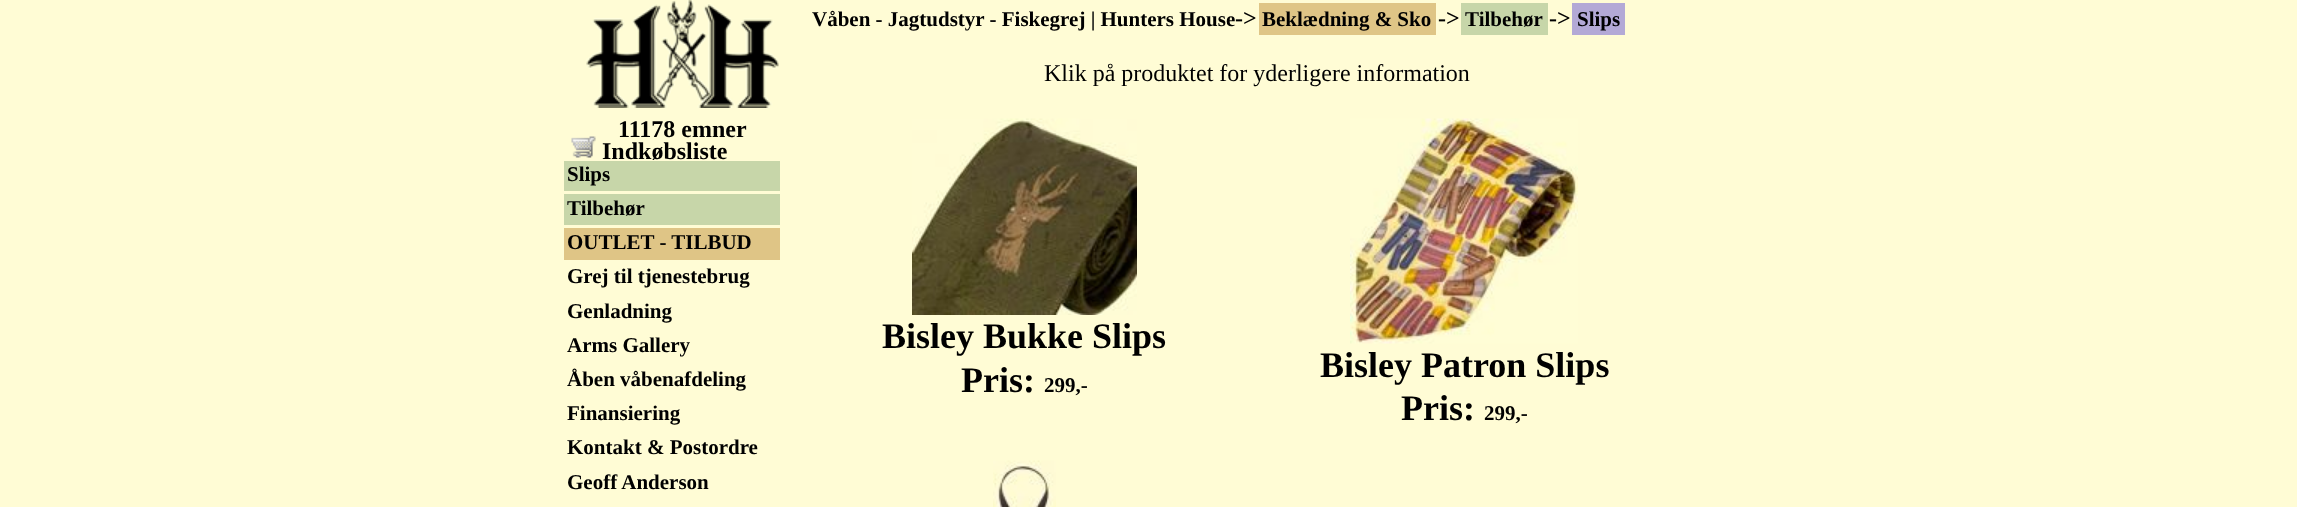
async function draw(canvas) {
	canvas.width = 2297;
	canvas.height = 507;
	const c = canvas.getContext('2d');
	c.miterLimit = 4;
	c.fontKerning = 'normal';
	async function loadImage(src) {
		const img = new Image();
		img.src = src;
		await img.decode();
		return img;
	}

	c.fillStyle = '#fffcd5';
	c.fillRect(0, 0, 2297, 507);
	c.font = 'bold 21px Liberation Serif';
	c.fillStyle = '#000';
	c.fillText('Våben - Jagtudstyr - Fiskegrej | Hunters House', 812, 26);
	c.font = 'bold 24px Liberation Serif';
	c.fillText('->', 1235, 26);
	c.fillStyle = '#dfc586';
	c.fillRect(1259, 3, 177, 32);
	c.font = 'bold 21px Liberation Serif';
	c.fillStyle = '#000';
	c.fillText('Beklædning & Sko', 1262, 26);
	c.font = 'bold 24px Liberation Serif';
	c.fillText('->', 1438, 26);
	c.fillStyle = '#c7d6a9';
	c.fillRect(1461, 3, 87, 32);
	c.font = 'bold 21px Liberation Serif';
	c.fillStyle = '#000';
	c.fillText('Tilbehør', 1465, 26);
	c.font = 'bold 24px Liberation Serif';
	c.fillText('->', 1549, 26);
	c.fillStyle = '#b3a9d6';
	c.fillRect(1572, 3, 53, 32);
	c.font = 'bold 21px Liberation Serif';
	c.fillStyle = '#000';
	c.fillText('Slips', 1577, 26);
	c.drawImage(await loadImage('img1.png'), 586, 0, 193, 108);
	c.font = 'bold 24px Liberation Serif';
	c.fillText('11178 emner', 618, 137);
	c.drawImage(await loadImage('img2.png'), 571, 136, 25, 22);
	c.fillText('Indkøbsliste', 602, 159);
	c.font = '24px Liberation Serif';
	c.fillText('Klik på produktet for yderligere information', 1044, 81);
	c.drawImage(await loadImage('img3.png'), 912, 118, 225, 197);
	c.font = 'bold 36px Liberation Serif';
	c.fillText('Bisley Bukke Slips', 882, 348);
	c.fillText('Pris:', 961, 392);
	c.font = 'bold 21px Liberation Serif';
	c.fillText('299,-', 1044, 392);
	c.drawImage(await loadImage('img4.png'), 1350, 118, 228, 226);
	c.font = 'bold 36px Liberation Serif';
	c.fillText('Bisley Patron Slips', 1320, 377);
	c.fillText('Pris:', 1401, 420);
	c.font = 'bold 21px Liberation Serif';
	c.fillText('299,-', 1484, 420);
	c.drawImage(await loadImage('img5.png'), 993, 460, 63, 47);
	c.fillStyle = '#c7d6a9';
	c.fillRect(564, 161, 216, 30);
	c.fillStyle = '#000';
	c.fillText('Slips', 567, 181);
	c.fillStyle = '#c7d6a9';
	c.fillRect(564, 194, 216, 31);
	c.fillStyle = '#000';
	c.fillText('Tilbehør', 567, 215);
	c.fillStyle = '#dfc586';
	c.fillRect(564, 228, 216, 32);
	c.fillStyle = '#000';
	for (const [text, x, y] of [
		['OUTLET - TILBUD', 567, 249],
		['Grej til tjenestebrug', 567, 283],
		['Genladning', 567, 318],
		['Arms Gallery', 567, 352],
		['Åben våbenafdeling', 567, 386],
		['Finansiering', 567, 420],
		['Kontakt & Postordre', 567, 454],
		['Geoff Anderson', 567, 489],
	]) {
		c.fillText(text, x, y);
	}
}

draw(document.querySelector('canvas'));
